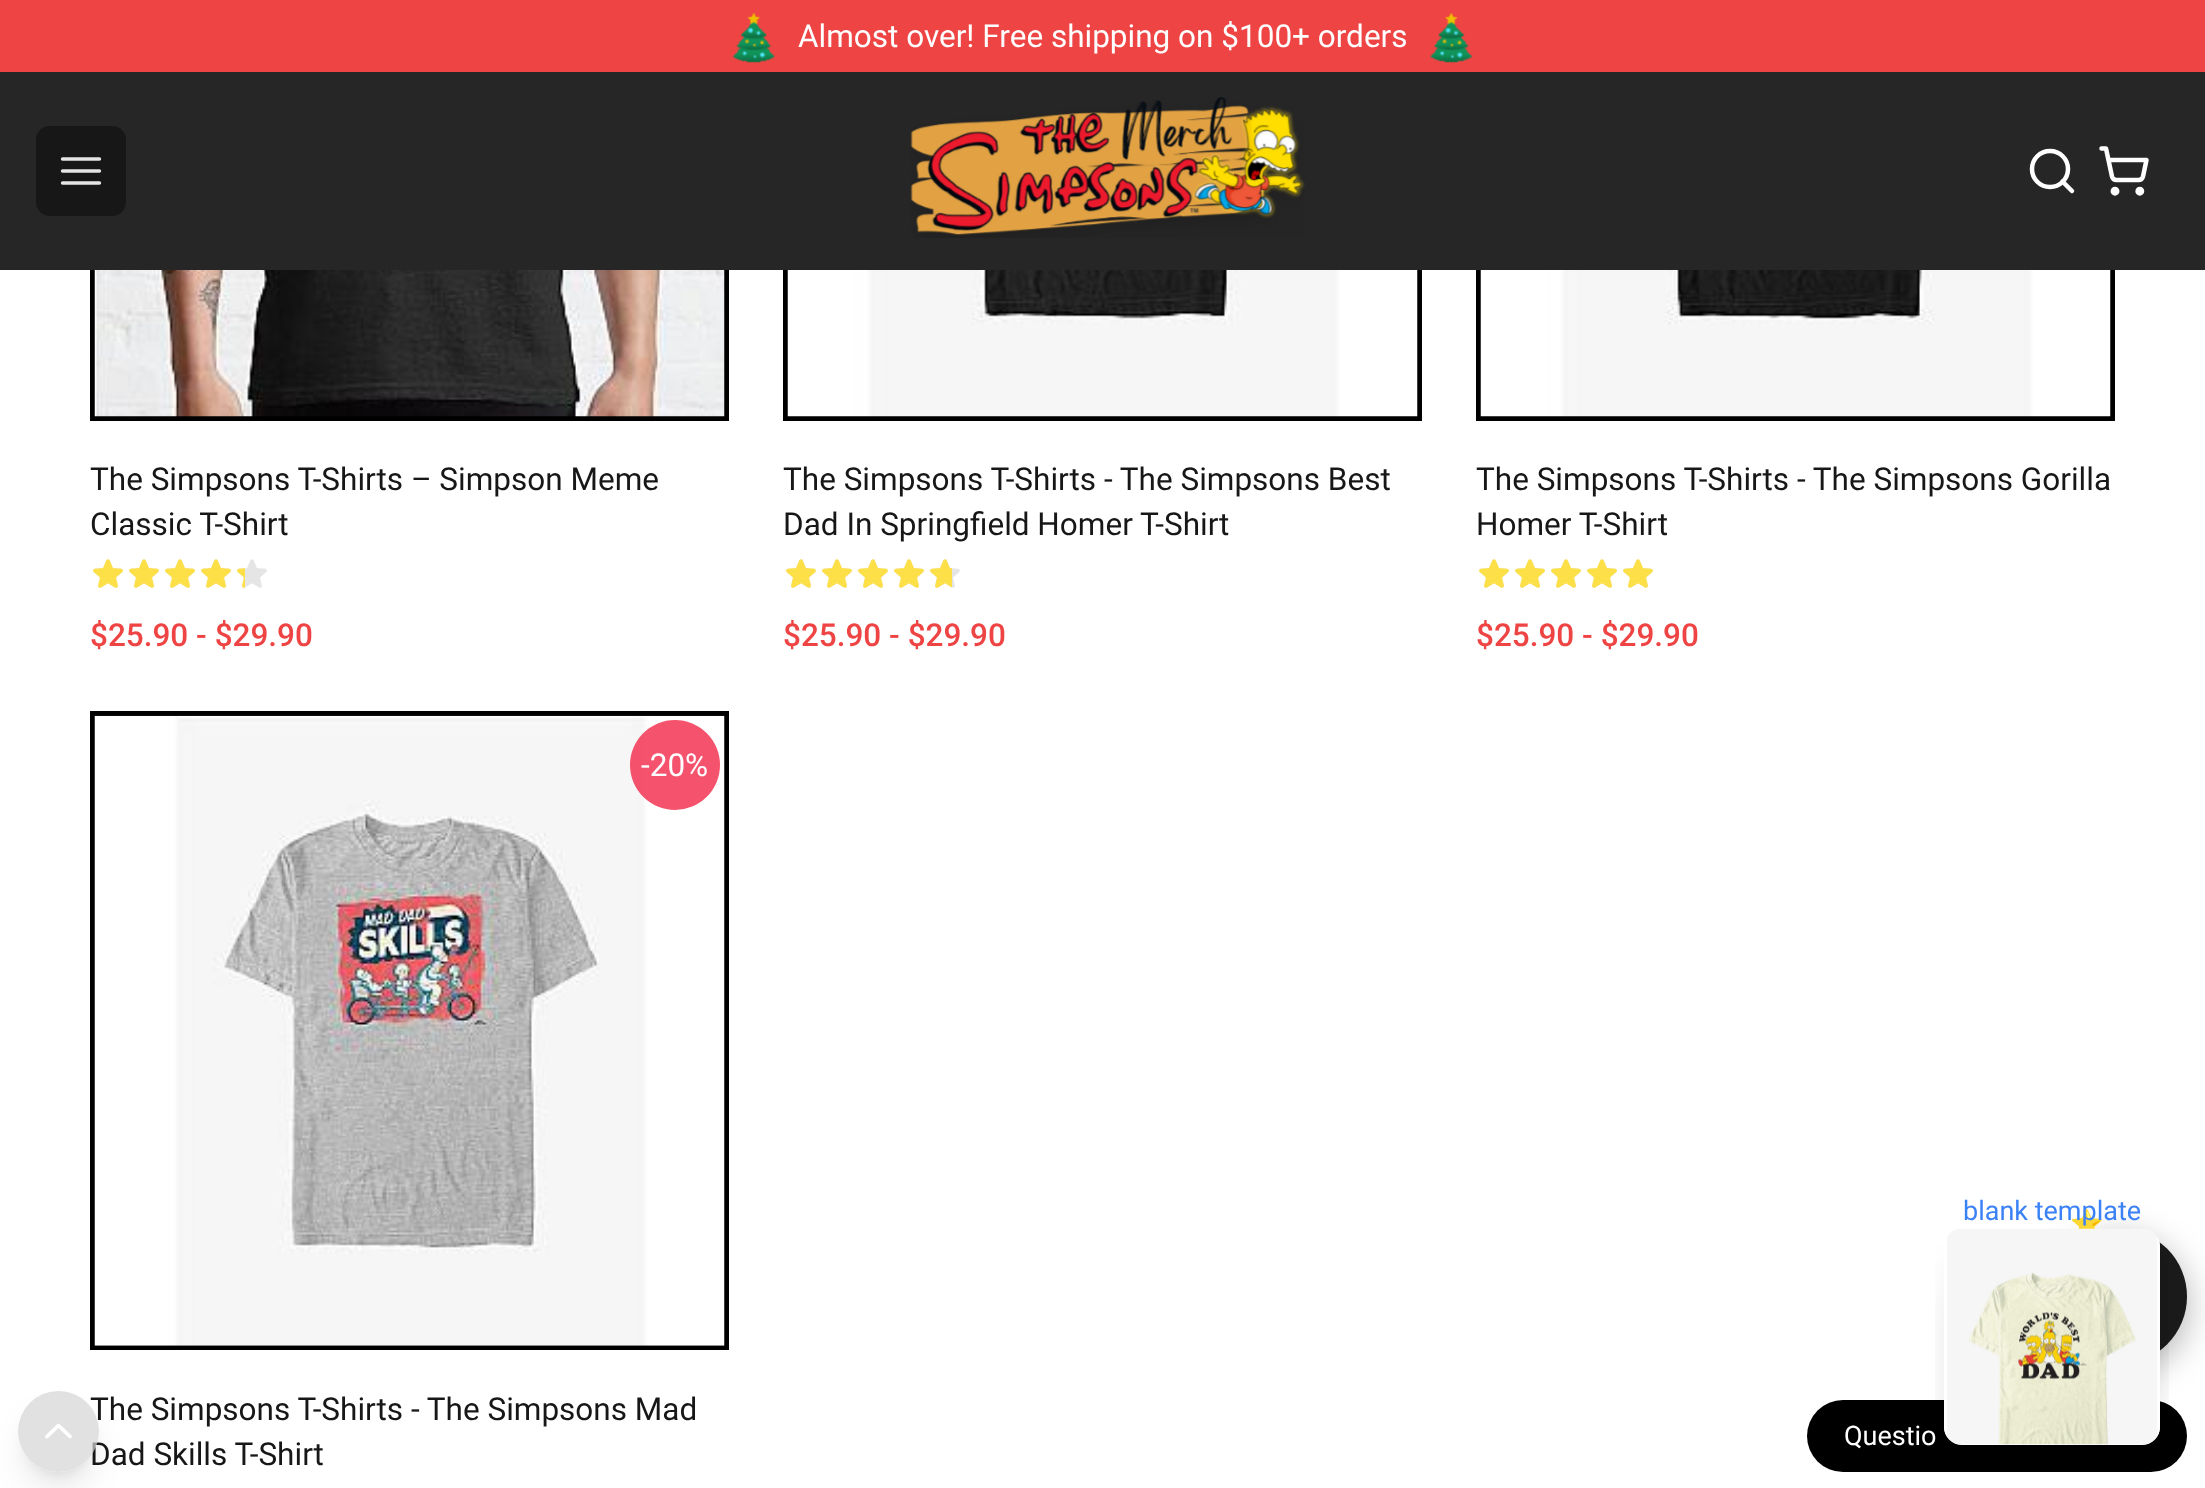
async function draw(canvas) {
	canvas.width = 2205;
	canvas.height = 1488;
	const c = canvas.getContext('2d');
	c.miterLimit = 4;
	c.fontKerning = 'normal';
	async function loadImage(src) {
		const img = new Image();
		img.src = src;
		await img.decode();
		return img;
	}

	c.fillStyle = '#fff';
	c.fillRect(0, 0, 2205, 1488);
	c.strokeStyle = '#000';
	c.lineWidth = 5;
	c.strokeRect(92.5, -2.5, 634, 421);
	c.strokeRect(785.5, -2.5, 634, 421);
	c.strokeRect(1478.5, -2.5, 634, 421);
	c.fillStyle = '#ef4444';
	c.fillRect(0, 0, 2205, 72);
	c.drawImage(await loadImage('img1.png'), 733, 13, 42, 50);
	c.font = '31.5px Roboto';
	c.fillStyle = '#fff';
	c.fillText('Almost over! Free shipping on $100+ orders', 798, 47);
	c.drawImage(await loadImage('img2.png'), 1430, 13, 43, 50);
	c.fillStyle = '#262626';
	c.fillRect(0, 72, 2205, 198);
	c.fillStyle = '#171717';
	c.beginPath();
	c.roundRect(36, 126, 90, 90, 14);
	c.fill();
	c.beginPath();
	c.moveTo(62.5, 159);
	c.lineTo(99.5, 159);
	c.moveTo(62.5, 171);
	c.lineTo(99.5, 171);
	c.moveTo(62.5, 183);
	c.lineTo(99.5, 183);
	c.strokeStyle = '#e5e5e5';
	c.lineWidth = 3.4;
	c.lineCap = 'round';
	c.lineJoin = 'round';
	c.stroke();
	c.drawImage(await loadImage('img3.png'), 910, 97, 395, 141);
	c.beginPath();
	c.moveTo(2072, 191);
	c.lineTo(2062.5, 181.5);
	c.strokeStyle = '#fff';
	c.lineWidth = 4.5;
	c.stroke();
	c.beginPath();
	c.arc(2050, 169, 18, 0, 2 * Math.PI);
	c.stroke();
	c.beginPath();
	c.arc(2115, 191.2, 2.2, 0, 2 * Math.PI);
	c.stroke();
	c.beginPath();
	c.arc(2139.8, 191.2, 2.2, 0, 2 * Math.PI);
	c.stroke();
	c.beginPath();
	c.moveTo(2101.5, 148.5);
	c.lineTo(2106, 148.5);
	c.lineTo(2112, 176.5);
	c.bezierCurveTo(2112.5, 178.5, 2114.5, 180, 2116.5, 180);
	c.lineTo(2138.5, 180);
	c.bezierCurveTo(2140.5, 180, 2142.5, 178.5, 2143, 176.5);
	c.lineTo(2146.5, 160);
	c.lineTo(2108.5, 160);
	c.stroke();
	c.drawImage(await loadImage('img4.png'), 94, 270, 631, 147);
	c.fillText('The Simpsons T-Shirts – Simpson Meme', 90, 490);
	c.fillText('Classic T-Shirt', 90, 535);
	c.drawImage(await loadImage('img5.png'), 93, 559, 30, 29);
	c.drawImage(await loadImage('img5.png'), 129, 559, 30, 29);
	c.drawImage(await loadImage('img5.png'), 165, 559, 30, 29);
	c.drawImage(await loadImage('img5.png'), 201, 559, 30, 29);
	c.drawImage(await loadImage('img5.png'), 237, 559, 30, 29);
	c.drawImage(await loadImage('img6.png'), 93, 559, 30, 29);
	c.drawImage(await loadImage('img6.png'), 129, 559, 30, 29);
	c.drawImage(await loadImage('img6.png'), 165, 559, 30, 29);
	c.drawImage(await loadImage('img6.png'), 201, 559, 30, 29);
	c.drawImage(await loadImage('img7.png'), 237, 568, 8, 20);
	c.font = '500 31.5px Roboto';
	c.fillStyle = '#ef4444';
	c.fillText('$25.90 - $29.90', 90, 646);
	c.drawImage(await loadImage('img8.png'), 787, 270, 631, 147);
	c.font = '31.5px Roboto';
	c.fillStyle = '#171717';
	c.fillText('The Simpsons T-Shirts - The Simpsons Best', 783, 490);
	c.fillText('Dad In Springfield Homer T-Shirt', 783, 535);
	c.drawImage(await loadImage('img5.png'), 786, 559, 30, 29);
	c.drawImage(await loadImage('img5.png'), 822, 559, 30, 29);
	c.drawImage(await loadImage('img5.png'), 858, 559, 30, 29);
	c.drawImage(await loadImage('img5.png'), 894, 559, 30, 29);
	c.drawImage(await loadImage('img5.png'), 930, 559, 30, 29);
	c.drawImage(await loadImage('img6.png'), 786, 559, 30, 29);
	c.drawImage(await loadImage('img6.png'), 822, 559, 30, 29);
	c.drawImage(await loadImage('img6.png'), 858, 559, 30, 29);
	c.drawImage(await loadImage('img6.png'), 894, 559, 30, 29);
	c.drawImage(await loadImage('img9.png'), 930, 559, 22, 29);
	c.font = '500 31.5px Roboto';
	c.fillStyle = '#ef4444';
	c.fillText('$25.90 - $29.90', 783, 646);
	c.drawImage(await loadImage('img10.png'), 1480, 270, 631, 147);
	c.font = '31.5px Roboto';
	c.fillStyle = '#171717';
	c.fillText('The Simpsons T-Shirts - The Simpsons Gorilla', 1476, 490);
	c.fillText('Homer T-Shirt', 1476, 535);
	c.drawImage(await loadImage('img5.png'), 1479, 559, 30, 29);
	c.drawImage(await loadImage('img5.png'), 1515, 559, 30, 29);
	c.drawImage(await loadImage('img5.png'), 1551, 559, 30, 29);
	c.drawImage(await loadImage('img5.png'), 1587, 559, 30, 29);
	c.drawImage(await loadImage('img5.png'), 1623, 559, 30, 29);
	c.drawImage(await loadImage('img6.png'), 1479, 559, 30, 29);
	c.drawImage(await loadImage('img6.png'), 1515, 559, 30, 29);
	c.drawImage(await loadImage('img6.png'), 1551, 559, 30, 29);
	c.drawImage(await loadImage('img6.png'), 1587, 559, 30, 29);
	c.drawImage(await loadImage('img6.png'), 1623, 559, 30, 29);
	c.font = '500 31.5px Roboto';
	c.fillStyle = '#ef4444';
	c.fillText('$25.90 - $29.90', 1476, 646);
	c.strokeStyle = '#000';
	c.lineWidth = 5;
	c.lineJoin = 'miter';
	c.strokeRect(92.5, 713.5, 634, 634);
	c.drawImage(await loadImage('img11.png'), 94, 715, 631, 631);
	c.fillStyle = '#f43f5ee6';
	c.beginPath();
	c.arc(675, 765, 45, 0, 2 * Math.PI);
	c.fill();
	c.font = '31.5px Roboto';
	c.fillStyle = '#fff';
	c.fillText('-20%', 641, 776);
	c.fillStyle = '#171717';
	c.fillText('The Simpsons T-Shirts - The Simpsons Mad', 90, 1420);
	c.fillText('Dad Skills T-Shirt', 90, 1465);
	c.fillStyle = '#000';
	c.beginPath();
	c.roundRect(1807, 1400, 380, 72, 36);
	c.fill();
	c.fillStyle = '#0000004d';
	c.filter = 'blur(17px)';
	c.beginPath();
	c.roundRect(2052, 1238, 135, 135, 67.5);
	c.fill();
	c.filter = 'none';
	c.fillStyle = '#1a1a1a';
	c.beginPath();
	c.arc(2119.5, 1296.5, 67.5, 0, 2 * Math.PI);
	c.fill();
	c.font = 'bold 27px Noto Color Emoji';
	c.fillStyle = '#ffd700';
	c.fillText('⭐', 2070, 1233);
	c.font = '27px Roboto';
	c.fillStyle = '#3b82f6';
	c.fillText('blank template', 1963, 1220);
	c.save();
	c.beginPath();
	c.rect(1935, 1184, 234, 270);
	c.clip();
	c.fillStyle = '#0000001a';
	c.filter = 'blur(11px)';
	c.beginPath();
	c.roundRect(1958, 1260, 189, 189, 5);
	c.fill();
	c.filter = 'none';
	c.filter = 'blur(28px)';
	c.beginPath();
	c.roundRect(1955, 1285, 194, 193, 7);
	c.fill();
	c.filter = 'none';
	c.restore();
	c.fillStyle = '#fff';
	c.beginPath();
	c.roundRect(1944, 1229, 216, 216, 18);
	c.fill();
	c.drawImage(await loadImage('img12.png'), 1944, 1228, 216, 217);
	c.save();
	c.beginPath();
	c.moveTo(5, 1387);
	c.lineTo(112, 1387);
	c.lineTo(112, 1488);
	c.lineTo(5, 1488);
	c.closePath();
	c.moveTo(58.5, 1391);
	c.bezierCurveTo(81, 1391, 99, 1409, 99, 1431.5);
	c.bezierCurveTo(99, 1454, 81, 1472, 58.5, 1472);
	c.bezierCurveTo(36, 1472, 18, 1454, 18, 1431.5);
	c.bezierCurveTo(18, 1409, 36, 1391, 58.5, 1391);
	c.closePath();
	c.clip('evenodd');
	c.fillStyle = '#0000001a';
	c.filter = 'blur(7px)';
	c.beginPath();
	c.roundRect(27, 1409, 63, 63, 31.5);
	c.fill();
	c.filter = 'none';
	c.restore();
	c.save();
	c.beginPath();
	c.moveTo(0, 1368);
	c.lineTo(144, 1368);
	c.lineTo(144, 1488);
	c.lineTo(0, 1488);
	c.closePath();
	c.moveTo(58.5, 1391);
	c.bezierCurveTo(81, 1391, 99, 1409, 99, 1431.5);
	c.bezierCurveTo(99, 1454, 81, 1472, 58.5, 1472);
	c.bezierCurveTo(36, 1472, 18, 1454, 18, 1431.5);
	c.bezierCurveTo(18, 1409, 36, 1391, 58.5, 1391);
	c.closePath();
	c.clip('evenodd');
	c.fillStyle = '#0000001a';
	c.filter = 'blur(17px)';
	c.beginPath();
	c.roundRect(25, 1420, 67, 67, 33.5);
	c.fill();
	c.filter = 'none';
	c.restore();
	c.fillStyle = '#d4d4d4b3';
	c.beginPath();
	c.arc(58.5, 1431.5, 40.5, 0, 2 * Math.PI);
	c.fill();
	c.beginPath();
	c.moveTo(70, 1436.5);
	c.lineTo(58.5, 1425.5);
	c.lineTo(47, 1436.5);
	c.strokeStyle = '#fff';
	c.lineWidth = 3.8;
	c.lineJoin = 'round';
	c.stroke();
	c.fillStyle = '#fff';
	c.fillText('Questio', 1844, 1445);
}

draw(document.querySelector('canvas'));
